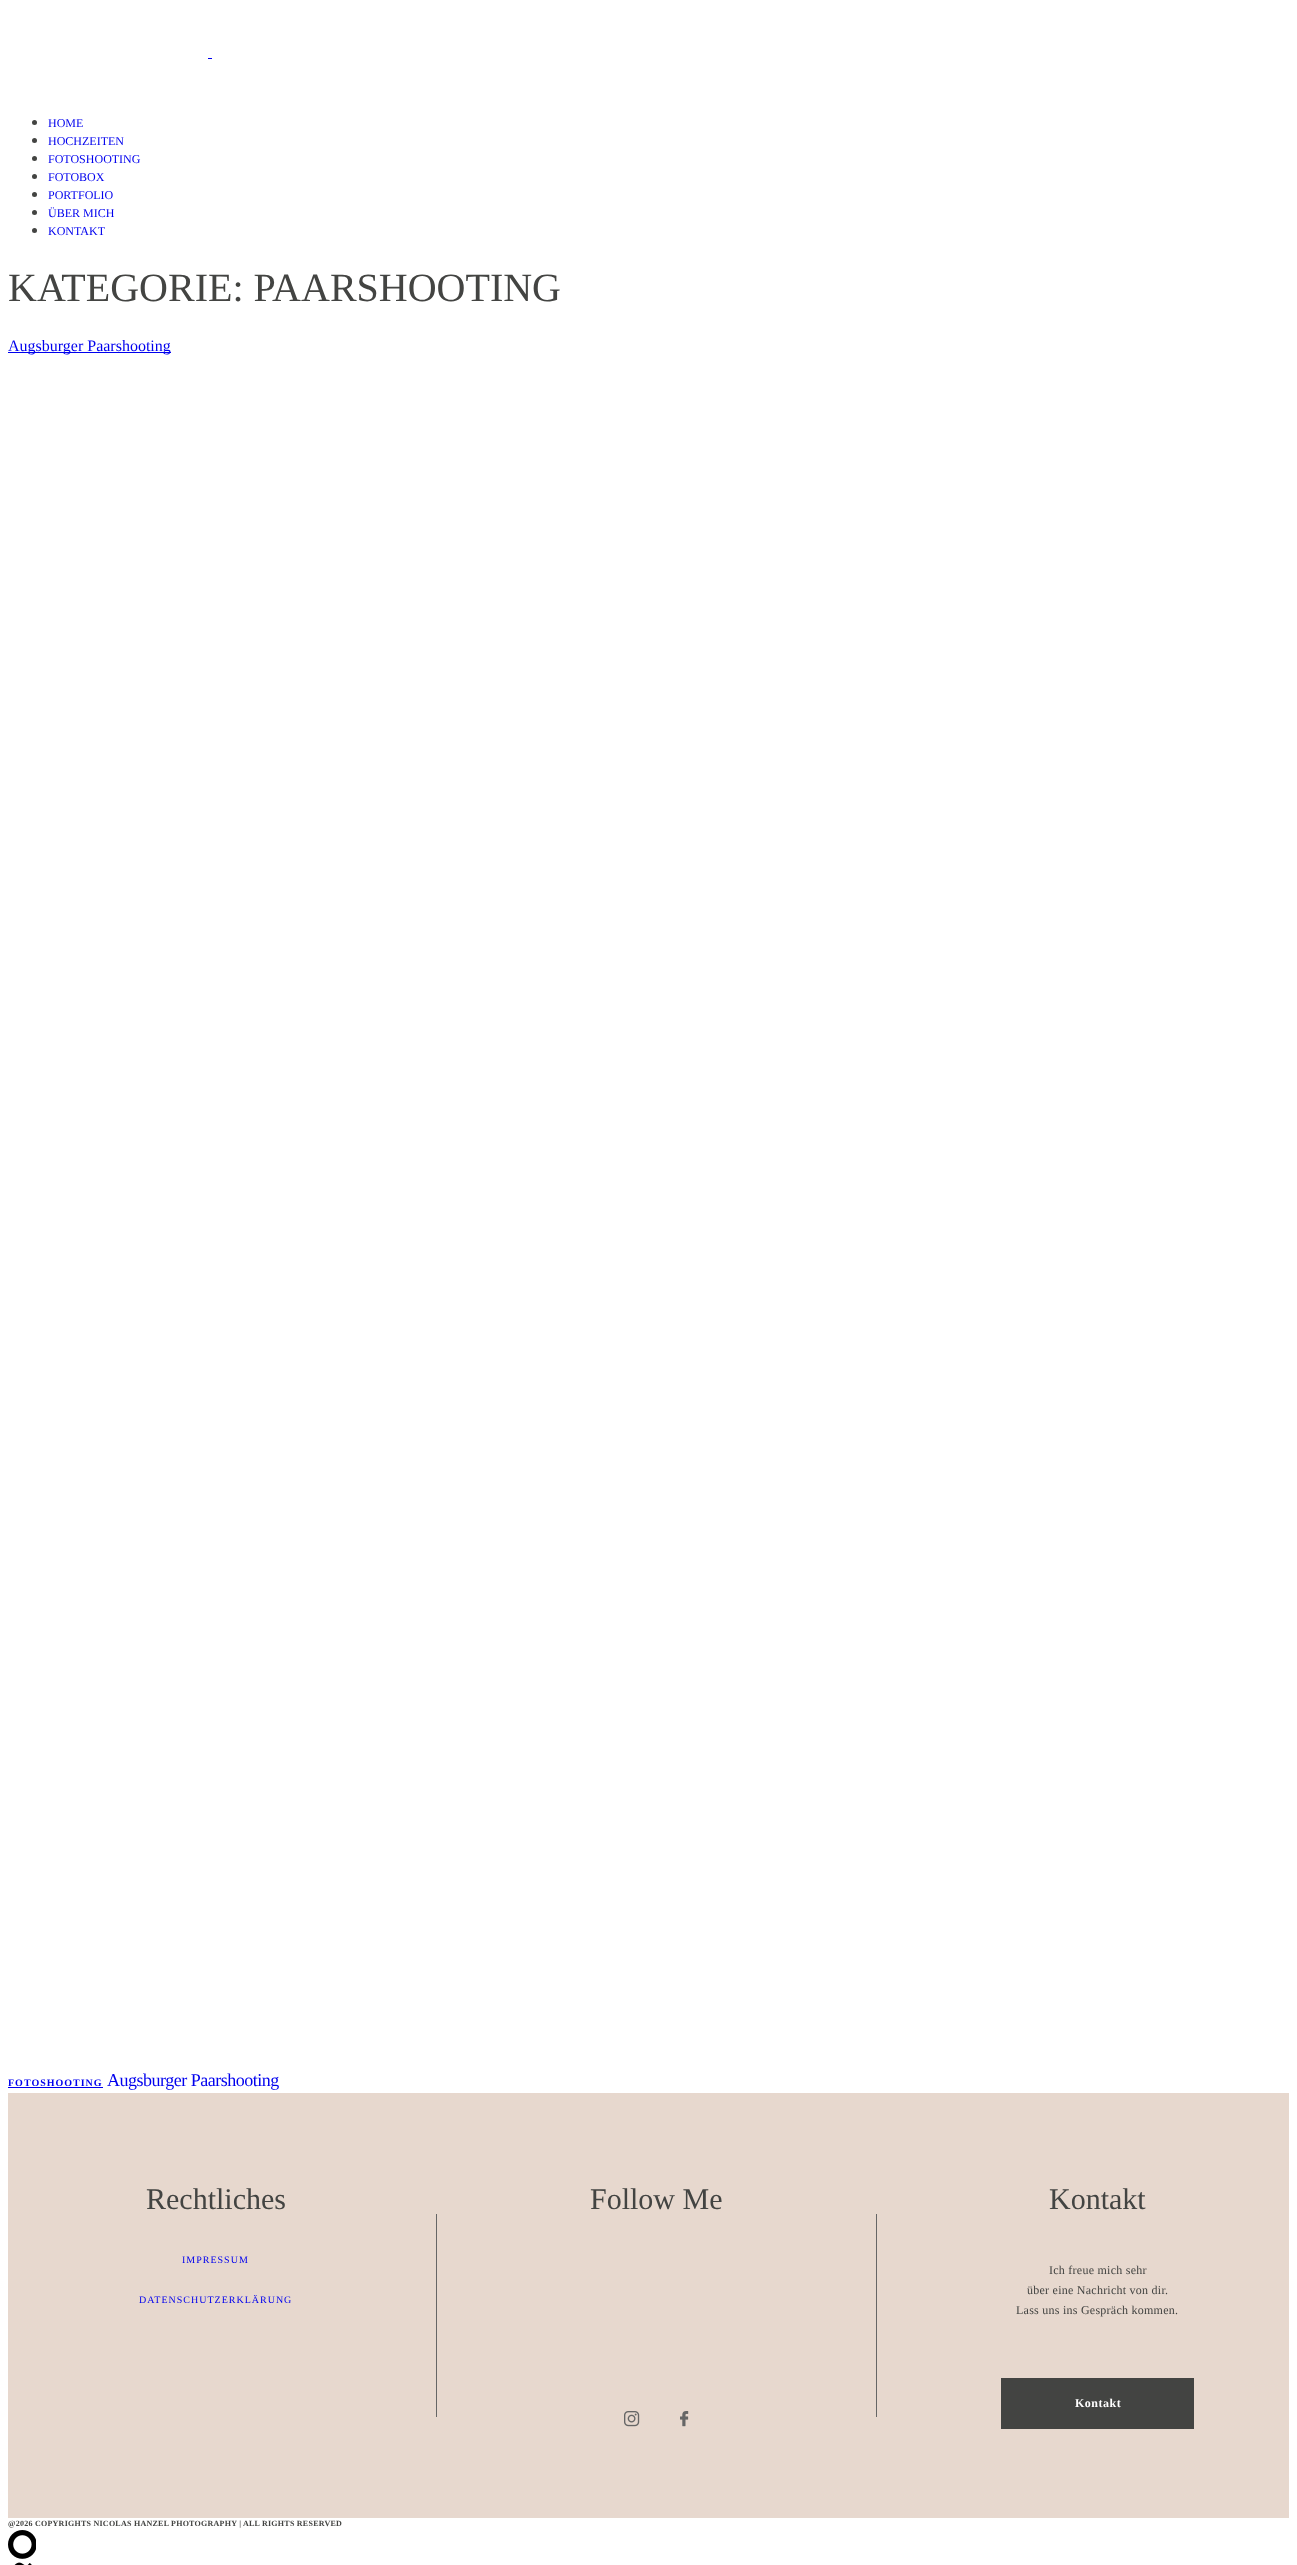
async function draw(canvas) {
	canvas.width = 1297;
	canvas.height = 2565;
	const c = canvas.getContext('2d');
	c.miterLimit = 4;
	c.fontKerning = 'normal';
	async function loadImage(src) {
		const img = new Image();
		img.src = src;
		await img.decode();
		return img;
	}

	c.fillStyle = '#fff';
	c.fillRect(0, 0, 1297, 2565);
	c.fillStyle = '#00e';
	c.fillRect(208, 58, 4, 1);
	c.fillStyle = '#434442';
	c.beginPath();
	c.arc(34.5, 122.5, 2.5, 0, 2 * Math.PI);
	c.fill();
	c.font = '12px Liberation Serif';
	c.fillStyle = '#00e';
	c.fillText('HOME', 48, 127);
	c.fillStyle = '#434442';
	c.beginPath();
	c.arc(34.5, 140.5, 2.5, 0, 2 * Math.PI);
	c.fill();
	c.fillStyle = '#00e';
	c.fillText('HOCHZEITEN', 48, 145);
	c.fillStyle = '#434442';
	c.beginPath();
	c.arc(34.5, 158.5, 2.5, 0, 2 * Math.PI);
	c.fill();
	c.fillStyle = '#00e';
	c.fillText('FOTOSHOOTING', 48, 163);
	c.fillStyle = '#434442';
	c.beginPath();
	c.arc(34.5, 176.5, 2.5, 0, 2 * Math.PI);
	c.fill();
	c.fillStyle = '#00e';
	c.fillText('FOTOBOX', 48, 181);
	c.fillStyle = '#434442';
	c.beginPath();
	c.arc(34.5, 194.5, 2.5, 0, 2 * Math.PI);
	c.fill();
	c.fillStyle = '#00e';
	c.fillText('PORTFOLIO', 48, 199);
	c.fillStyle = '#434442';
	c.beginPath();
	c.arc(34.5, 212.5, 2.5, 0, 2 * Math.PI);
	c.fill();
	c.fillStyle = '#00e';
	c.fillText('ÜBER MICH', 48, 217);
	c.fillStyle = '#434442';
	c.beginPath();
	c.arc(34.5, 230.5, 2.5, 0, 2 * Math.PI);
	c.fill();
	c.fillStyle = '#00e';
	c.fillText('KONTAKT', 48, 235);
	c.font = '40px Liberation Serif';
	c.fillStyle = '#434442';
	c.fillText('KATEGORIE: PAARSHOOTING', 8, 301);
	c.fillStyle = '#00e';
	c.fillRect(8, 352, 163, 1);
	c.font = '16px Liberation Serif';
	c.fillText('Augsburger Paarshooting', 8, 351);
	c.letterSpacing = '1px';
	c.font = 'bold 10px Liberation Serif';
	c.fillText('FOTOSHOOTING', 8, 2086);
	c.fillRect(8, 2087, 95, 1);
	c.letterSpacing = '-0.5px';
	c.font = '18px Liberation Serif';
	c.fillText('Augsburger Paarshooting', 107, 2086);
	c.fillStyle = '#e7d8ce';
	c.fillRect(8, 2093, 1281, 425);
	c.letterSpacing = '0px';
	c.font = '30px Liberation Serif';
	c.fillStyle = '#434442';
	for (const [text, x, y] of [
		['Rechtliches', 146, 2209],
		['Follow Me', 590, 2209],
		['Kontakt', 1049, 2209],
	]) {
		c.fillText(text, x, y);
	}
	c.letterSpacing = '1px';
	c.font = '10px Liberation Serif';
	c.fillStyle = '#00e';
	c.fillText('IMPRESSUM', 182, 2263);
	c.fillStyle = '#666';
	c.fillRect(436, 2214, 1, 203);
	c.fillRect(876, 2214, 1, 203);
	c.fillStyle = '#00e';
	c.fillText('DATENSCHUTZERKLÄRUNG', 139, 2303);
	c.letterSpacing = '0.25px';
	c.font = '12px Liberation Serif';
	c.fillStyle = '#434442';
	for (const [text, x, y] of [
		['Ich freue mich sehr', 1049, 2274],
		['über eine Nachricht von dir.', 1027, 2294],
		['Lass uns ins Gespräch kommen.', 1016, 2314],
	]) {
		c.fillText(text, x, y);
	}
	c.fillRect(1001, 2378, 193, 51);
	c.letterSpacing = '0.5px';
	c.font = 'bold 12px Liberation Serif';
	c.fillStyle = '#fff';
	c.fillText('Kontakt', 1075, 2407);
	c.drawImage(await loadImage('img1.png'), 624, 2411, 16, 16);
	c.drawImage(await loadImage('img2.png'), 680, 2411, 9, 16);
	c.letterSpacing = '0.25px';
	c.font = 'bold 8px Liberation Serif';
	c.fillStyle = '#434442';
	c.fillText('@2026 COPYRIGHTS NICOLAS HANZEL PHOTOGRAPHY | ALL RIGHTS RESERVED', 8, 2526);
	c.drawImage(await loadImage('img3.png'), 8, 2530, 28, 35);
}

draw(document.querySelector('canvas'));
